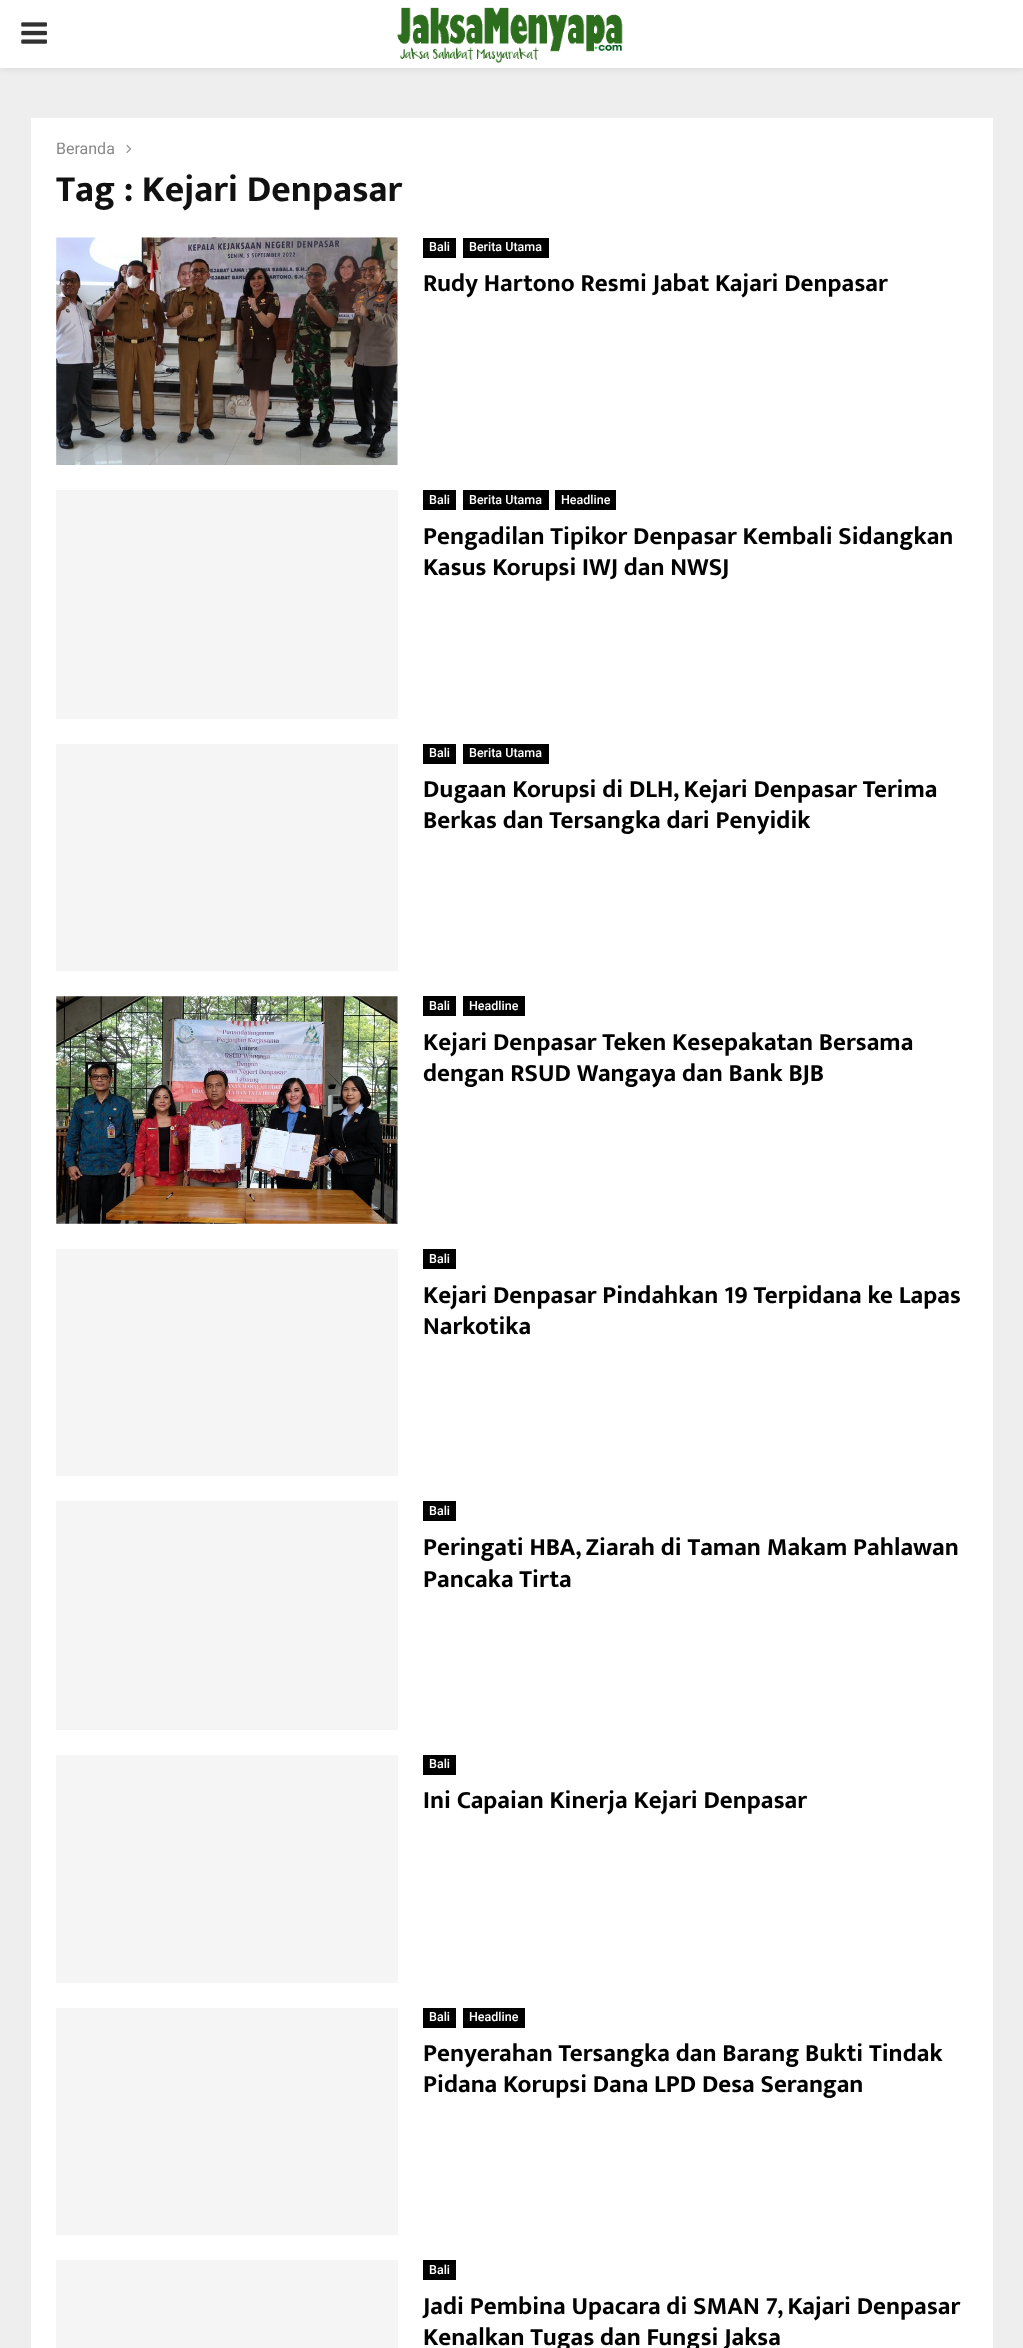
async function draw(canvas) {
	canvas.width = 1023;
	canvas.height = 2348;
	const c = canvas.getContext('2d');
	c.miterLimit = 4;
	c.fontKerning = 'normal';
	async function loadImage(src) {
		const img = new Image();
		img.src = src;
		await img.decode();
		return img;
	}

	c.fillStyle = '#eee';
	c.fillRect(0, 0, 1023, 2348);
	c.fillStyle = '#bebebe75';
	c.filter = 'blur(3px)';
	c.beginPath();
	c.rect(0, 1, 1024, 68);
	c.fill();
	c.filter = 'none';
	c.fillStyle = '#fff';
	c.fillRect(0, 0, 1023, 68);
	c.drawImage(await loadImage('img1.png'), 21, 22, 26, 22);
	c.drawImage(await loadImage('img2.png'), 397, 7, 226, 56);
	c.fillRect(31, 118, 962, 2230);
	c.font = '16px Roboto';
	c.fillStyle = '#888';
	c.fillText('Beranda', 56, 154);
	c.drawImage(await loadImage('img3.png'), 126, 144, 6, 9);
	c.font = 'bold 37.5px Mukta Vaani';
	c.fillStyle = '#111';
	c.fillText('Tag : Kejari Denpasar', 56, 201);
	c.fillStyle = '#f5f5f5';
	c.fillRect(56, 238, 342, 227);
	c.drawImage(await loadImage('img4.png'), 56, 237, 342, 228);
	c.fillStyle = '#000';
	c.fillRect(423, 238, 33, 20);
	c.font = '500 12.5px Roboto';
	c.fillStyle = '#fff';
	c.fillText('Bali', 429, 251);
	c.fillStyle = '#000';
	c.fillRect(463, 238, 86, 20);
	c.fillStyle = '#fff';
	c.fillText('Berita Utama', 469, 251);
	c.font = 'bold 25px Mukta Vaani';
	c.fillStyle = '#000';
	c.fillText('Rudy Hartono Resmi Jabat Kajari Denpasar', 423, 291);
	c.fillStyle = '#f5f5f5';
	c.fillRect(56, 490, 342, 229);
	c.fillStyle = '#000';
	c.fillRect(423, 490, 33, 20);
	c.font = '500 12.5px Roboto';
	c.fillStyle = '#fff';
	c.fillText('Bali', 429, 504);
	c.fillStyle = '#000';
	c.fillRect(463, 490, 86, 20);
	c.fillStyle = '#fff';
	c.fillText('Berita Utama', 469, 504);
	c.fillStyle = '#000';
	c.fillRect(555, 490, 61, 20);
	c.fillStyle = '#fff';
	c.fillText('Headline', 561, 504);
	c.font = 'bold 25px Mukta Vaani';
	c.fillStyle = '#000';
	c.fillText('Pengadilan Tipikor Denpasar Kembali Sidangkan', 423, 544);
	c.fillText('Kasus Korupsi IWJ dan NWSJ', 423, 575);
	c.fillStyle = '#f5f5f5';
	c.fillRect(56, 744, 342, 227);
	c.fillStyle = '#000';
	c.fillRect(423, 744, 33, 20);
	c.font = '500 12.5px Roboto';
	c.fillStyle = '#fff';
	c.fillText('Bali', 429, 757);
	c.fillStyle = '#000';
	c.fillRect(463, 744, 86, 20);
	c.fillStyle = '#fff';
	c.fillText('Berita Utama', 469, 757);
	c.font = 'bold 25px Mukta Vaani';
	c.fillStyle = '#000';
	c.fillText('Dugaan Korupsi di DLH, Kejari Denpasar Terima', 423, 797);
	c.fillText('Berkas dan Tersangka dari Penyidik', 423, 828);
	c.fillStyle = '#f5f5f5';
	c.fillRect(56, 996, 342, 228);
	c.drawImage(await loadImage('img5.png'), 56, 996, 342, 228);
	c.fillStyle = '#000';
	c.fillRect(423, 996, 33, 20);
	c.font = '500 12.5px Roboto';
	c.fillStyle = '#fff';
	c.fillText('Bali', 429, 1010);
	c.fillStyle = '#000';
	c.fillRect(463, 996, 62, 20);
	c.fillStyle = '#fff';
	c.fillText('Headline', 469, 1010);
	c.font = 'bold 25px Mukta Vaani';
	c.fillStyle = '#000';
	c.fillText('Kejari Denpasar Teken Kesepakatan Bersama', 423, 1050);
	c.fillText('dengan RSUD Wangaya dan Bank BJB', 423, 1081);
	c.fillStyle = '#f5f5f5';
	c.fillRect(56, 1249, 342, 227);
	c.fillStyle = '#000';
	c.fillRect(423, 1249, 33, 20);
	c.font = '500 12.5px Roboto';
	c.fillStyle = '#fff';
	c.fillText('Bali', 429, 1263);
	c.font = 'bold 25px Mukta Vaani';
	c.fillStyle = '#000';
	c.fillText('Kejari Denpasar Pindahkan 19 Terpidana ke Lapas', 423, 1303);
	c.fillText('Narkotika', 423, 1334);
	c.fillStyle = '#f5f5f5';
	c.fillRect(56, 1501, 342, 229);
	c.fillStyle = '#000';
	c.fillRect(423, 1501, 33, 20);
	c.font = '500 12.5px Roboto';
	c.fillStyle = '#fff';
	c.fillText('Bali', 429, 1515);
	c.font = 'bold 25px Mukta Vaani';
	c.fillStyle = '#000';
	c.fillText('Peringati HBA, Ziarah di Taman Makam Pahlawan', 423, 1555);
	c.fillText('Pancaka Tirta', 423, 1587);
	c.fillStyle = '#f5f5f5';
	c.fillRect(56, 1755, 342, 228);
	c.fillStyle = '#000';
	c.fillRect(423, 1755, 33, 20);
	c.font = '500 12.5px Roboto';
	c.fillStyle = '#fff';
	c.fillText('Bali', 429, 1768);
	c.font = 'bold 25px Mukta Vaani';
	c.fillStyle = '#000';
	c.fillText('Ini Capaian Kinerja Kejari Denpasar', 423, 1808);
	c.fillStyle = '#f5f5f5';
	c.fillRect(56, 2008, 342, 227);
	c.fillStyle = '#000';
	c.fillRect(423, 2008, 33, 20);
	c.font = '500 12.5px Roboto';
	c.fillStyle = '#fff';
	c.fillText('Bali', 429, 2021);
	c.fillStyle = '#000';
	c.fillRect(463, 2008, 62, 20);
	c.fillStyle = '#fff';
	c.fillText('Headline', 469, 2021);
	c.font = 'bold 25px Mukta Vaani';
	c.fillStyle = '#000';
	c.fillText('Penyerahan Tersangka dan Barang Bukti Tindak', 423, 2061);
	c.fillText('Pidana Korupsi Dana LPD Desa Serangan', 423, 2092);
	c.fillStyle = '#f5f5f5';
	c.fillRect(56, 2260, 342, 88);
	c.fillStyle = '#000';
	c.fillRect(423, 2260, 33, 20);
	c.font = '500 12.5px Roboto';
	c.fillStyle = '#fff';
	c.fillText('Bali', 429, 2274);
	c.font = 'bold 25px Mukta Vaani';
	c.fillStyle = '#000';
	c.fillText('Jadi Pembina Upacara di SMAN 7, Kajari Denpasar', 423, 2314);
	c.fillText('Kenalkan Tugas dan Fungsi Jaksa', 423, 2345);
}

draw(document.querySelector('canvas'));
